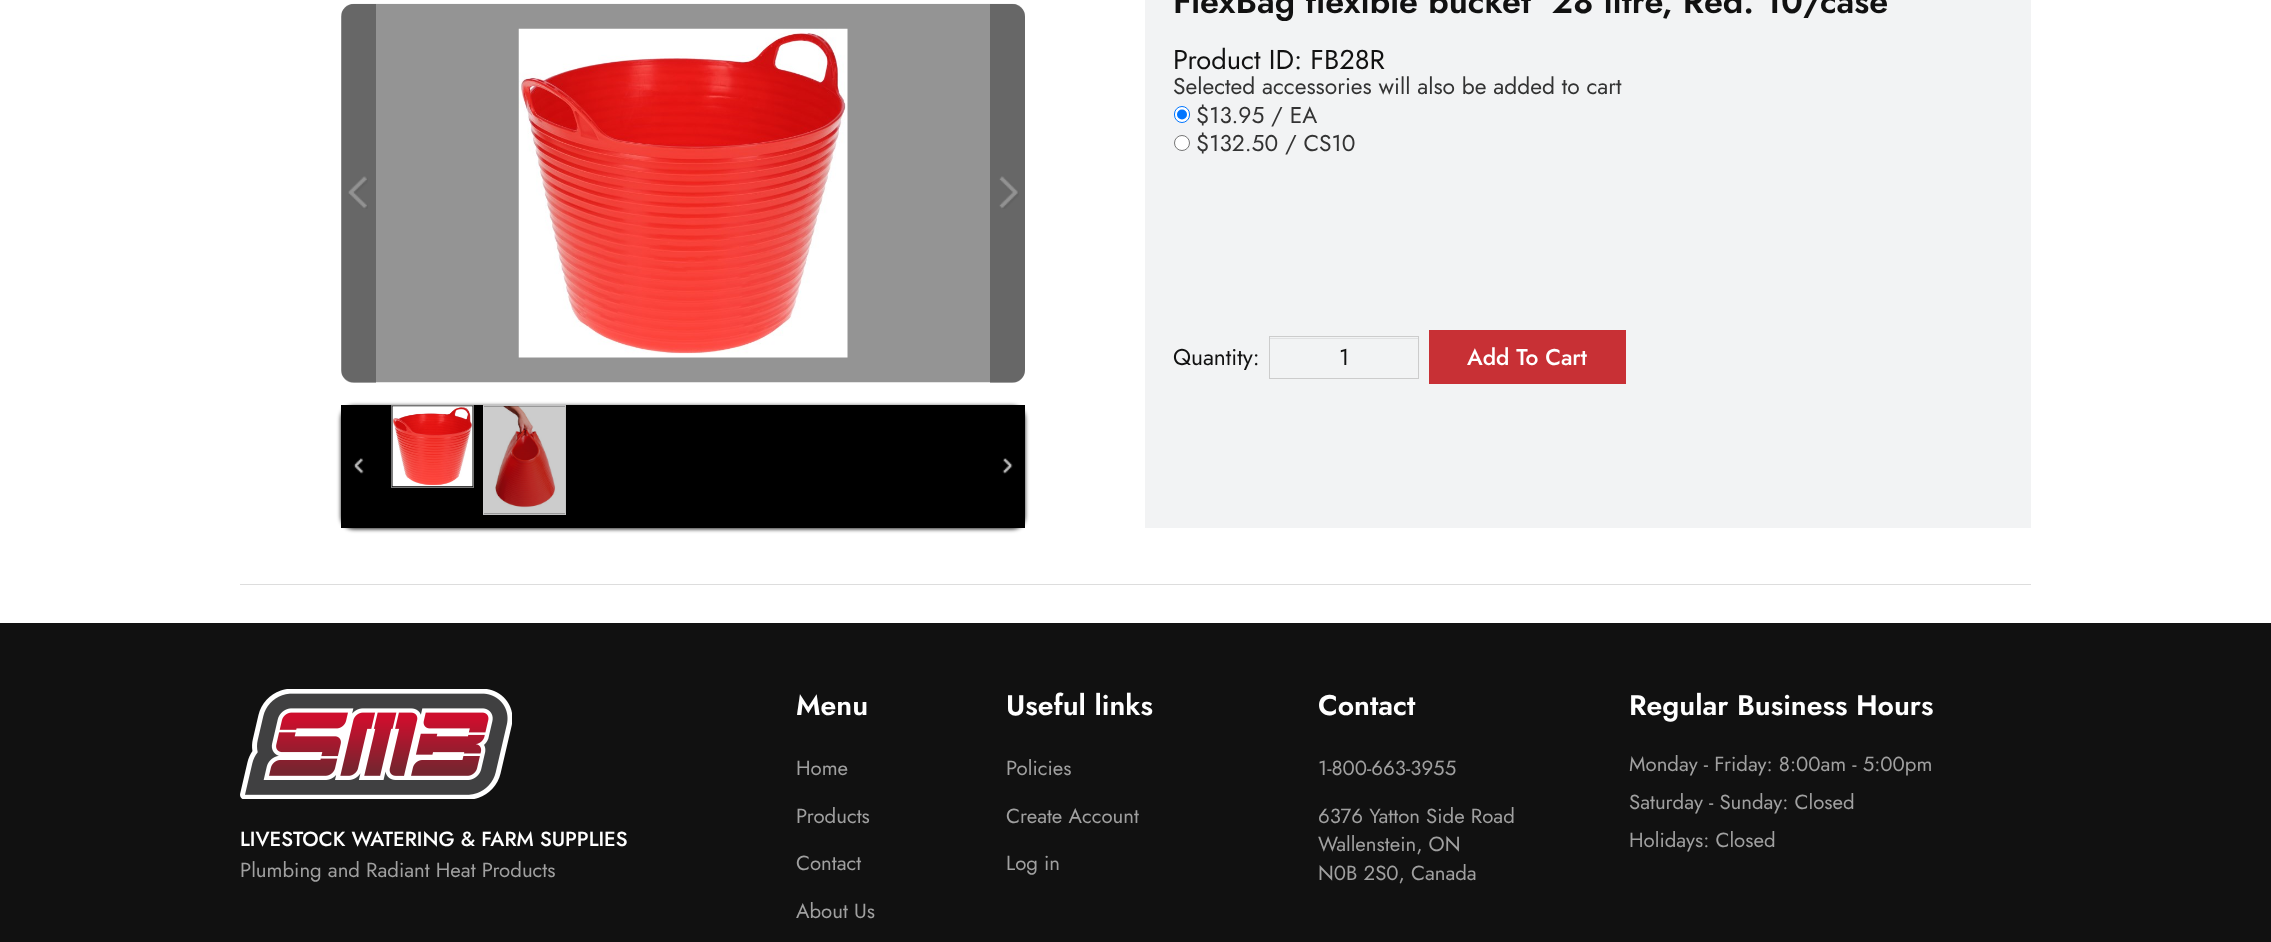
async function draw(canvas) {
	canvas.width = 2271;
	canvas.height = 942;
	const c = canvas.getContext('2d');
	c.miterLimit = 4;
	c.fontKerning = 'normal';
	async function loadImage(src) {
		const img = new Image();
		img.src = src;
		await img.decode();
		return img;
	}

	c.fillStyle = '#fff';
	c.fillRect(0, 0, 2271, 942);
	c.drawImage(await loadImage('img1.png'), 341, 3, 684, 380);
	c.fillStyle = '#0000004d';
	c.beginPath();
	c.roundRect(341, 4, 35, 379, [13, 0, 0, 13]);
	c.fill();
	c.drawImage(await loadImage('img2.png'), 348, 176, 20, 33);
	c.beginPath();
	c.roundRect(990, 4, 35, 379, [0, 13, 13, 0]);
	c.fill();
	c.drawImage(await loadImage('img3.png'), 999, 176, 20, 33);
	c.drawImage(await loadImage('img4.png'), 518, 28, 330, 330);
	c.fillStyle = '#000000e6';
	c.filter = 'blur(2px)';
	c.beginPath();
	c.roundRect(341, 406, 684, 123, 13);
	c.fill();
	c.filter = 'none';
	c.fillStyle = '#000';
	c.fillRect(341, 405, 684, 123);
	c.strokeStyle = '#767676';
	c.strokeRect(391.5, 405.5, 82, 82);
	c.drawImage(await loadImage('img5.png'), 392, 406, 81, 81);
	c.strokeStyle = '#c2c2c3';
	c.strokeRect(483.5, 405.5, 82, 109);
	c.drawImage(await loadImage('img6.png'), 483, 406, 82, 108);
	c.drawImage(await loadImage('img7.png'), 353, 458, 11, 16);
	c.drawImage(await loadImage('img8.png'), 1002, 458, 11, 16);
	c.fillStyle = '#f2f3f4';
	c.fillRect(1145, 0, 886, 528);
	c.font = '600 34.1px Jost';
	c.fillStyle = '#111';
	c.fillText('FlexBag flexible bucket  28 litre, Red. 10/case', 1173, 13);
	c.font = '27.25px Jost';
	c.fillText('Product ID: FB28R', 1173, 69);
	c.font = '22.75px Jost';
	c.fillStyle = '#333';
	c.fillText('Selected accessories will also be added to cart', 1173, 94);
	c.fillStyle = '#fff';
	c.beginPath();
	c.roundRect(1174.5, 106.5, 15, 16, 7.5);
	c.fill();
	c.strokeStyle = '#0075ff';
	c.stroke();
	c.fillStyle = '#0075ff';
	c.beginPath();
	c.arc(1182, 114.5, 5, 0, 2 * Math.PI);
	c.fill();
	c.fillStyle = '#333';
	c.fillText('$13.95 / EA', 1196, 123);
	c.fillStyle = '#fff';
	c.beginPath();
	c.arc(1182, 143, 7.5, 0, 2 * Math.PI);
	c.fill();
	c.strokeStyle = '#767676';
	c.stroke();
	c.fillStyle = '#333';
	c.fillText('$132.50 / CS10', 1196, 151);
	c.fillStyle = '#111';
	c.fillText('Quantity:', 1173, 365);
	c.fillStyle = '#e0e1e2';
	c.fillRect(1270, 338, 148, 1);
	c.strokeStyle = '#ccc';
	c.strokeRect(1269.5, 336.5, 149, 42);
	c.fillStyle = '#111';
	c.fillText('1', 1339, 365);
	c.fillStyle = '#c83035';
	c.fillRect(1429, 330, 197, 54);
	c.font = '500 22.75px Jost';
	c.fillStyle = '#fff';
	c.fillText('Add To Cart', 1467, 365);
	c.fillStyle = '#ddd';
	c.fillRect(240, 584, 1791, 1);
	c.fillStyle = '#111';
	c.fillRect(0, 623, 2271, 319);
	c.drawImage(await loadImage('img9.png'), 240, 689, 272, 110);
	c.font = '500 20.4px Jost';
	c.fillStyle = '#fff';
	c.fillText('LIVESTOCK WATERING & FARM SUPPLIES', 240, 846);
	c.font = '20.4px Jost';
	c.fillStyle = '#a0a0a0';
	c.fillText('Plumbing and Radiant Heat Products', 240, 877);
	c.font = '600 28.4px Jost';
	c.fillStyle = '#fff';
	c.fillText('Menu', 796, 715);
	c.font = '20.4px Jost';
	c.fillStyle = '#a0a0a0';
	for (const [text, x, y] of [
		['Home', 796, 775],
		['Products', 796, 823],
		['Contact', 796, 870],
		['About Us', 796, 918],
	]) {
		c.fillText(text, x, y);
	}
	c.font = '600 28.4px Jost';
	c.fillStyle = '#fff';
	c.fillText('Useful links', 1006, 715);
	c.font = '20.4px Jost';
	c.fillStyle = '#a0a0a0';
	for (const [text, x, y] of [
		['Policies', 1006, 775],
		['Create Account', 1006, 823],
		['Log in', 1006, 870],
	]) {
		c.fillText(text, x, y);
	}
	c.font = '600 28.4px Jost';
	c.fillStyle = '#fff';
	c.fillText('Contact', 1318, 715);
	c.font = '20.4px Jost';
	c.fillStyle = '#a0a0a0';
	for (const [text, x, y] of [
		['1-800-663-3955', 1318, 775],
		['6376 Yatton Side Road', 1318, 823],
		['Wallenstein, ON', 1318, 851],
		['N0B 2S0, Canada', 1318, 880],
	]) {
		c.fillText(text, x, y);
	}
	c.font = '600 28.4px Jost';
	c.fillStyle = '#fff';
	c.fillText('Regular Business Hours', 1629, 715);
	c.font = '20.4px Jost';
	c.fillStyle = '#a0a0a0';
	for (const [text, x, y] of [
		['Monday - Friday: 8:00am - 5:00pm', 1629, 771],
		['Saturday - Sunday: Closed', 1629, 809],
		['Holidays: Closed', 1629, 847],
	]) {
		c.fillText(text, x, y);
	}
}

draw(document.querySelector('canvas'));
